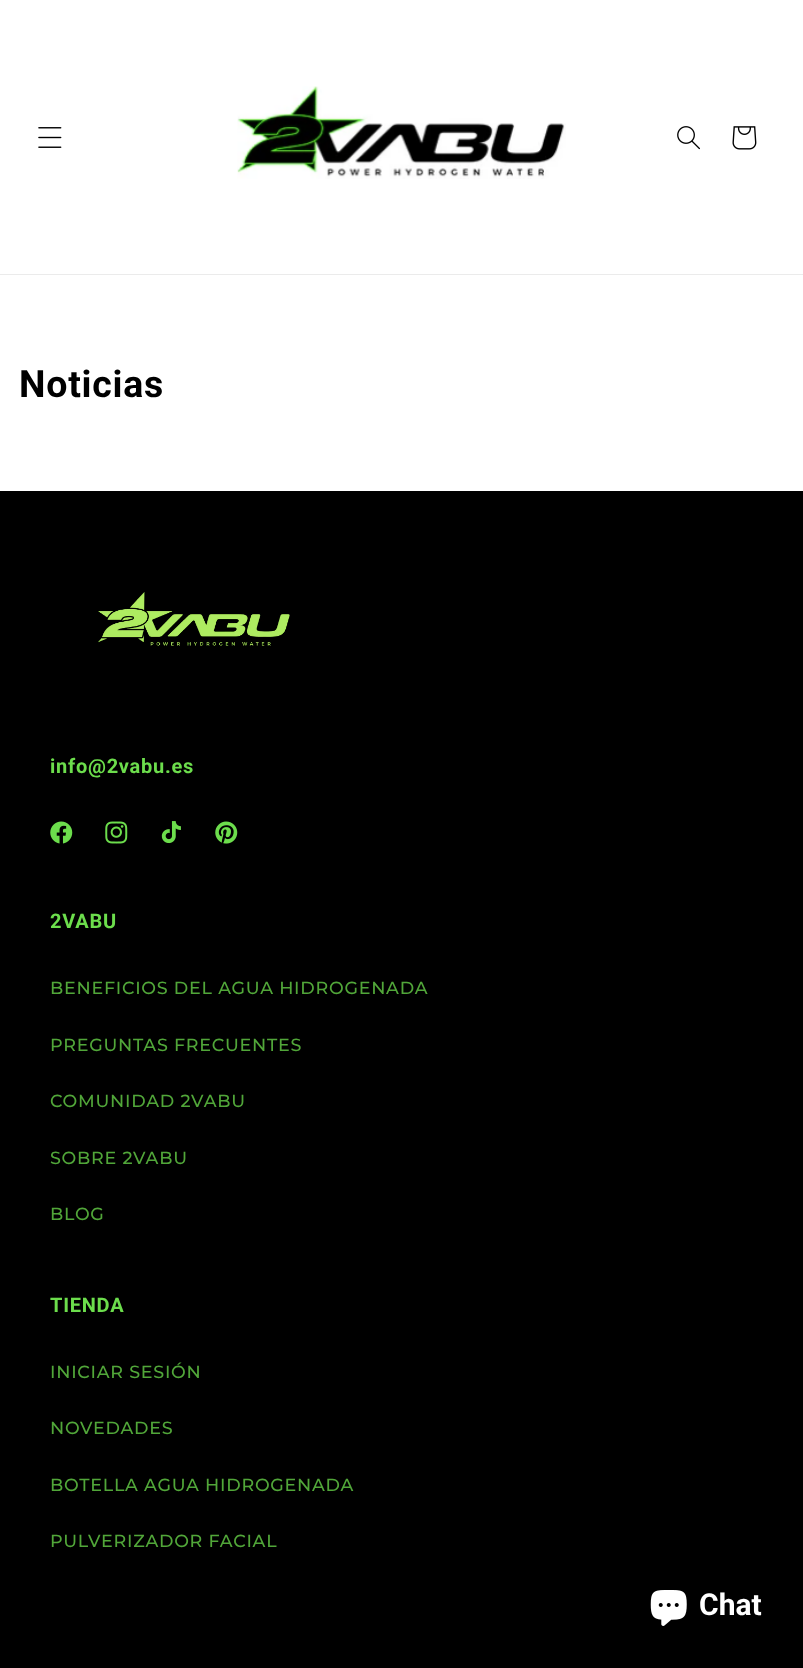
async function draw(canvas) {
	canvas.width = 803;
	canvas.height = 1668;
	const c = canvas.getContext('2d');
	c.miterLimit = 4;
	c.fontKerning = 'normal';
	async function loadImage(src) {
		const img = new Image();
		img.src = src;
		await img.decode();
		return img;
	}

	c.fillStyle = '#fff';
	c.fillRect(0, 0, 803, 1668);
	c.fillStyle = '#ebebeb';
	c.fillRect(0, 274, 803, 1);
	c.drawImage(await loadImage('img1.png'), 38, 127, 24, 21);
	c.drawImage(await loadImage('img2.png'), 237, 86, 329, 93);
	c.drawImage(await loadImage('img3.png'), 677, 126, 23, 24);
	c.drawImage(await loadImage('img4.png'), 732, 126, 25, 24);
	c.letterSpacing = '0.75px';
	c.font = 'bold 37.5px Roboto';
	c.fillStyle = '#000';
	c.fillText('Noticias', 19, 397);
	c.fillRect(0, 491, 803, 1177);
	c.drawImage(await loadImage('img5.png'), 98, 592, 192, 54);
	c.font = 'bold 20px Roboto';
	c.fillStyle = '#6cdd4c';
	c.fillText('info@2vabu.es', 50, 773);
	c.drawImage(await loadImage('img6.png'), 50, 821, 23, 23);
	c.drawImage(await loadImage('img7.png'), 105, 821, 23, 23);
	c.drawImage(await loadImage('img8.png'), 161, 821, 20, 23);
	c.drawImage(await loadImage('img9.png'), 215, 821, 23, 23);
	c.fillText('2VABU', 50, 928);
	c.font = '500 17.5px Montserrat';
	c.fillStyle = '#51a639';
	for (const [text, x, y] of [
		['BENEFICIOS DEL AGUA HIDROGENADA', 50, 994],
		['PREGUNTAS FRECUENTES', 50, 1051],
		['COMUNIDAD 2VABU', 50, 1107],
		['SOBRE 2VABU', 50, 1164],
		['BLOG', 50, 1220],
	]) {
		c.fillText(text, x, y);
	}
	c.font = 'bold 20px Roboto';
	c.fillStyle = '#6cdd4c';
	c.fillText('TIENDA', 50, 1312);
	c.font = '500 17.5px Montserrat';
	c.fillStyle = '#51a639';
	for (const [text, x, y] of [
		['INICIAR SESIÓN', 50, 1378],
		['NOVEDADES', 50, 1434],
		['BOTELLA AGUA HIDROGENADA', 50, 1491],
		['PULVERIZADOR FACIAL', 50, 1547],
	]) {
		c.fillText(text, x, y);
	}
	c.drawImage(await loadImage('img10.png'), 650, 1590, 37, 36);
	c.letterSpacing = '0px';
	c.font = 'bold 30px Roboto';
	c.fillStyle = '#fff';
	c.fillText('Chat', 699, 1615);
}

draw(document.querySelector('canvas'));
